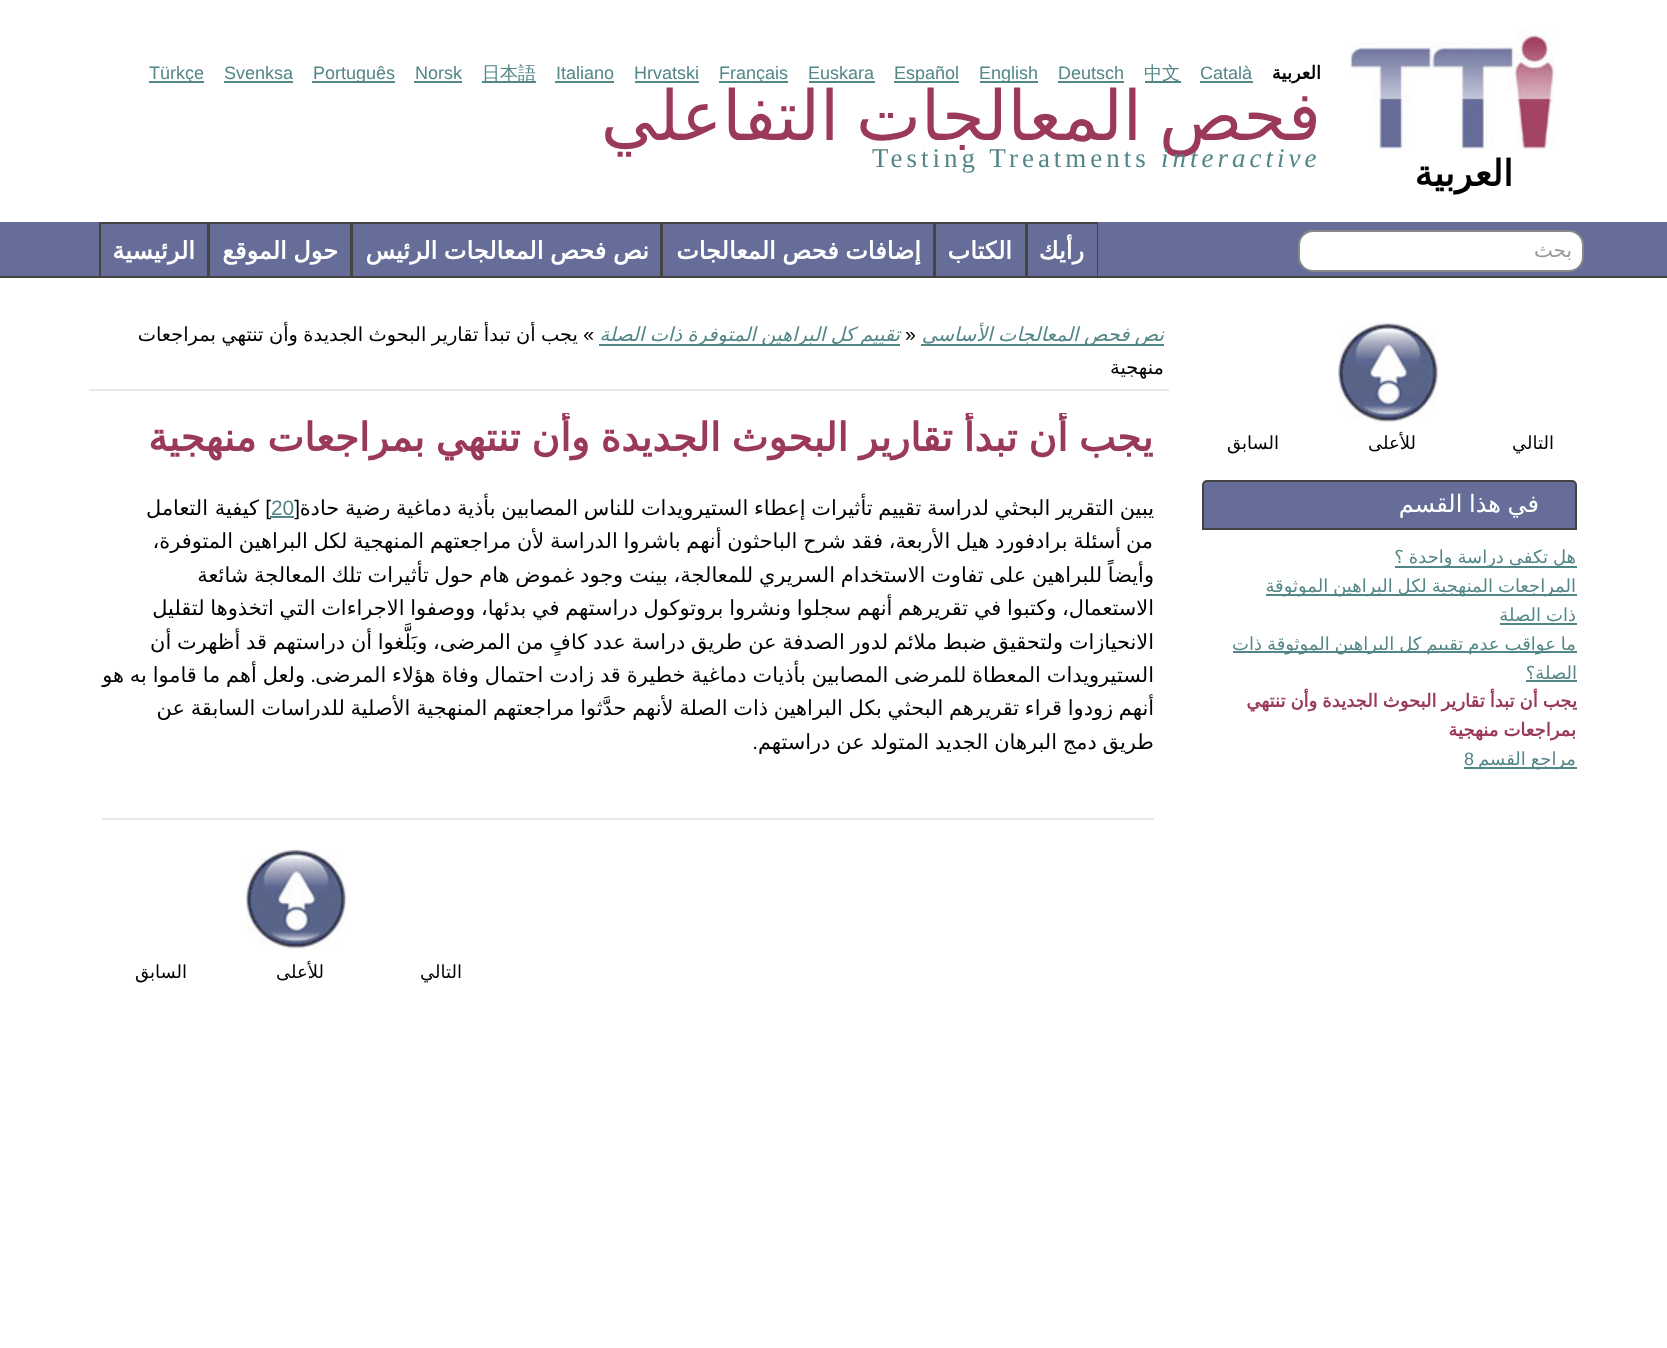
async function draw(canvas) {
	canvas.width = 1667;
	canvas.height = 1348;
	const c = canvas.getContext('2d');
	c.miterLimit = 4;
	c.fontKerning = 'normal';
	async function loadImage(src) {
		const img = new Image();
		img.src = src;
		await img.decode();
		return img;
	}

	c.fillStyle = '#fff';
	c.fillRect(0, 0, 1667, 1348);
	c.direction = 'rtl';
	c.font = 'bold 18px DejaVu Sans';
	c.fillStyle = '#000';
	c.fillText('العربية', 1321, 79);
	c.direction = 'ltr';
	c.font = '18px Liberation Sans';
	c.fillStyle = '#538687';
	c.fillText('Català', 1200, 79);
	c.fillRect(1200, 81, 53, 2);
	c.fillRect(1145, 81, 36, 2);
	c.font = '500 18px WenQuanYi Zen Hei';
	c.fillText('中文', 1144, 79);
	c.font = '18px Liberation Sans';
	c.fillText('Deutsch', 1058, 79);
	c.fillRect(1058, 81, 66, 2);
	c.fillRect(980, 81, 58, 2);
	c.fillText('English', 979, 79);
	c.fillRect(894, 81, 65, 2);
	c.fillText('Español', 894, 79);
	c.fillText('Euskara', 808, 79);
	c.fillRect(809, 81, 66, 2);
	c.fillRect(719, 81, 69, 2);
	c.fillText('Français', 719, 79);
	c.fillText('Hrvatski', 634, 79);
	c.fillRect(635, 81, 64, 2);
	c.fillText('Italiano', 556, 79);
	c.fillRect(555, 81, 59, 2);
	c.fillRect(482, 81, 54, 2);
	c.font = '500 18px WenQuanYi Zen Hei';
	c.fillText('日本語', 482, 79);
	c.font = '18px Liberation Sans';
	c.fillText('Norsk', 415, 79);
	c.fillRect(414, 81, 48, 2);
	c.fillRect(312, 81, 83, 2);
	c.fillText('Português', 313, 79);
	c.fillText('Svenksa', 224, 79);
	c.fillRect(224, 81, 69, 2);
	c.fillRect(149, 81, 55, 2);
	c.fillText('Türkçe', 149, 79);
	c.drawImage(await loadImage('img1.png'), 1350, 30, 205, 120);
	c.direction = 'rtl';
	c.font = 'bold 36px DejaVu Sans';
	c.fillStyle = '#000';
	c.fillText('العربية', 1513, 186);
	c.wordSpacing = '-5px';
	c.font = '69px DejaVu Sans';
	c.fillStyle = '#9a395c';
	c.fillText('فحص المعالجات التفاعلي', 1321, 140);
	c.letterSpacing = '4px';
	c.wordSpacing = '0px';
	c.direction = 'ltr';
	c.font = 'italic 27px Liberation Serif';
	c.fillStyle = '#538687';
	c.fillText('interactive', 1161, 167);
	c.font = '27px Liberation Serif';
	c.fillText('Testing Treatments', 872, 167);
	c.fillStyle = '#656d98';
	c.fillRect(0, 222, 1667, 54);
	c.fillStyle = '#444';
	c.fillRect(0, 276, 1667, 2);
	c.fillStyle = '#fff';
	c.beginPath();
	c.roundRect(1299, 231, 284, 40, 14);
	c.fill();
	c.strokeStyle = '#888';
	c.lineWidth = 2;
	c.stroke();
	c.letterSpacing = '0px';
	c.direction = 'rtl';
	c.font = '20px DejaVu Sans';
	c.fillStyle = '#999';
	c.fillText('بحث', 1572, 257);
	c.strokeStyle = '#444';
	c.strokeRect(1027, 223, 70, 54);
	c.fillStyle = '#656d98';
	c.fillRect(1096, 224, 1, 52);
	c.font = 'bold 24px DejaVu Sans';
	c.fillStyle = '#fff';
	c.fillText('رأيك', 1084, 259);
	c.strokeRect(936, 223, 89, 54);
	c.fillStyle = '#656d98';
	c.fillRect(936, 224, 89, 52);
	c.fillStyle = '#fff';
	c.fillText('الكتاب', 1012, 259);
	c.strokeRect(663, 223, 271, 54);
	c.fillStyle = '#656d98';
	c.fillRect(663, 224, 1, 52);
	c.wordSpacing = '-1px';
	c.fillStyle = '#fff';
	c.fillText('إضافات فحص المعالجات', 921, 259);
	c.strokeRect(352, 223, 309, 54);
	c.fillText('نص فحص المعالجات الرئيس', 649, 259);
	c.strokeRect(210, 223, 140, 54);
	c.fillStyle = '#656d98';
	c.fillRect(210, 224, 140, 52);
	c.fillStyle = '#fff';
	c.fillText('حول الموقع', 338, 259);
	c.strokeRect(100, 223, 108, 54);
	c.wordSpacing = '0px';
	c.fillText('الرئيسية', 195, 259);
	c.font = '18px DejaVu Sans';
	c.fillStyle = '#000';
	c.fillText('التالي', 1554, 449);
	c.drawImage(await loadImage('img2.png'), 1338, 322, 101, 101);
	c.fillText('للأعلى', 1416, 449);
	c.fillText('السابق', 1279, 449);
	c.fillStyle = '#656d98';
	c.beginPath();
	c.roundRect(1203, 481, 373, 48, [4, 4, 0, 0]);
	c.fill();
	c.stroke();
	c.wordSpacing = '-1px';
	c.font = '24px DejaVu Sans';
	c.fillStyle = '#fff';
	c.fillText('في هذا القسم', 1539, 512);
	c.fillStyle = '#538687';
	c.fillRect(1395, 566, 182, 2);
	c.wordSpacing = '-0.75px';
	c.font = '18px DejaVu Sans';
	c.fillText('هل تكفي دراسة واحدة ؟', 1576, 563);
	c.fillRect(1266, 594, 311, 2);
	c.fillText('المراجعات المنهجية لكل البراهين الموثوقة', 1576, 592);
	c.fillText('ذات الصلة', 1576, 621);
	c.fillRect(1500, 623, 77, 2);
	c.fillRect(1233, 651, 344, 2);
	c.fillText('ما عواقب عدم تقييم كل البراهين الموثوقة ذات', 1576, 650);
	c.wordSpacing = '0px';
	c.fillText('الصلة؟', 1577, 679);
	c.fillRect(1526, 680, 51, 2);
	c.wordSpacing = '-0.75px';
	c.font = 'bold 18px DejaVu Sans';
	c.fillStyle = '#9a395c';
	c.fillText('يجب أن تبدأ تقارير البحوث الجديدة وأن تنتهي', 1577, 707);
	c.fillText('بمراجعات منهجية', 1576, 736);
	c.fillStyle = '#538687';
	c.fillRect(1464, 767, 113, 2);
	c.font = '18px DejaVu Sans';
	c.fillText('مراجع القسم', 1576, 765);
	c.wordSpacing = '0px';
	c.direction = 'ltr';
	c.font = '18px Liberation Sans';
	c.fillText('8', 1464, 765);
	c.fillStyle = '#e7e7e7';
	c.fillRect(89, 389, 1080, 2);
	c.fillStyle = '#538687';
	c.fillRect(921, 344, 243, 2);
	c.wordSpacing = '-0.75px';
	c.direction = 'rtl';
	c.font = 'italic 19.4px DejaVu Sans';
	c.fillText('نص فحص المعالجات الأساسي', 1164, 341);
	c.wordSpacing = '0px';
	c.direction = 'ltr';
	c.font = '19.4px Liberation Sans';
	c.fillStyle = '#000';
	c.fillText('»', 905, 341);
	c.fillStyle = '#538687';
	c.fillRect(599, 344, 301, 2);
	c.wordSpacing = '-0.75px';
	c.direction = 'rtl';
	c.font = 'italic 19.4px DejaVu Sans';
	c.fillText('تقييم كل البراهين المتوفرة ذات الصلة', 900, 341);
	c.wordSpacing = '0px';
	c.font = '19.4px Liberation Sans';
	c.fillStyle = '#000';
	c.fillText('»', 594, 341);
	c.wordSpacing = '-0.75px';
	c.font = '19.4px DejaVu Sans';
	c.fillText('يجب أن تبدأ تقارير البحوث الجديدة وأن تنتهي بمراجعات', 578, 341);
	c.wordSpacing = '0px';
	c.fillText('منهجية', 1164, 374);
	c.save();
	c.beginPath();
	c.roundRect(84, 413, 1088, 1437, 8);
	c.clip();
	c.wordSpacing = '-1.5px';
	c.font = 'bold 39px DejaVu Sans';
	c.fillStyle = '#9a395c';
	c.fillText('يجب أن تبدأ تقارير البحوث الجديدة وأن تنتهي بمراجعات منهجية', 1153, 451);
	c.restore();
	c.save();
	c.beginPath();
	c.rect(102, 468, 1052, 329);
	c.clip();
	c.wordSpacing = '-0.9px';
	c.font = '20.9px DejaVu Sans';
	c.fillText('يبين التقرير البحثي لدراسة تقييم تأثيرات إعطاء الستيرويدات للناس المصابين بأذية دماغية رضية حادة', 1154, 515);
	c.restore();
	c.font = '20.9px Liberation Sans';
	c.fillText('[', 300, 515);
	c.direction = 'ltr';
	c.fillStyle = '#538687';
	c.fillText('20', 271, 515);
	c.fillRect(270, 516, 24, 2);
	c.direction = 'rtl';
	c.fillStyle = '#000';
	c.fillText(']', 271, 515);
	c.font = '20.9px DejaVu Sans';
	c.fillText('كيفية التعامل', 259, 515);
	c.wordSpacing = '-0.9px';
	c.fillText('أسئلة برادفورد هيل الأربعة، فقد شرح الباحثون أنهم باشروا الدراسة لأن مراجعتهم المنهجية لكل البراهين المتوفرة،', 1121, 548);
	c.wordSpacing = '0px';
	c.fillText('من', 1153, 548);
	c.save();
	c.beginPath();
	c.rect(102, 468, 1052, 329);
	c.clip();
	c.wordSpacing = '-0.9px';
	for (const [text, x, y] of [
		['وأيضاً للبراهين على تفاوت الاستخدام السريري للمعالجة، بينت وجود غموض هام حول تأثيرات تلك المعالجة شائعة', 1154, 582],
		['الاستعمال، وكتبوا في تقريرهم أنهم سجلوا ونشروا بروتوكول دراستهم في بدئها، ووصفوا الاجراءات التي اتخذوها لتقليل', 1154, 615],
		['الانحيازات ولتحقيق ضبط ملائم لدور الصدفة عن طريق دراسة عدد كافٍ من المرضى، وبَلَّغوا أن دراستهم قد أظهرت أن', 1154, 649],
	]) {
		c.fillText(text, x, y);
	}
	c.wordSpacing = '-0.8px';
	c.fillText('الستيرويدات المعطاة للمرضى المصابين بأذيات دماغية خطيرة قد زادت احتمال وفاة هؤلاء المرضى', 1154, 682);
	c.restore();
	c.font = '20.9px Liberation Sans';
	c.fillText('.', 316, 682);
	c.wordSpacing = '-0.8px';
	c.font = '20.9px DejaVu Sans';
	c.fillText('ولعل أهم ما قاموا به هو', 305, 682);
	c.save();
	c.beginPath();
	c.rect(102, 468, 1052, 329);
	c.clip();
	c.wordSpacing = '-0.9px';
	c.fillText('أنهم زودوا قراء تقريرهم البحثي بكل البراهين ذات الصلة لأنهم حدَّثوا مراجعتهم المنهجية الأصلية للدراسات السابقة عن', 1154, 715);
	c.wordSpacing = '-0.8px';
	c.fillText('طريق دمج البرهان الجديد المتولد عن دراستهم', 1154, 749);
	c.restore();
	c.wordSpacing = '0px';
	c.font = '20.9px Liberation Sans';
	c.fillText('.', 758, 749);
	c.fillStyle = '#e7e7e7';
	c.fillRect(102, 818, 1052, 2);
	c.font = '18px DejaVu Sans';
	c.fillStyle = '#000';
	c.fillText('التالي', 462, 978);
	c.drawImage(await loadImage('img3.png'), 246, 849, 101, 101);
	c.fillText('للأعلى', 324, 978);
	c.fillText('السابق', 187, 978);
}

draw(document.querySelector('canvas'));
